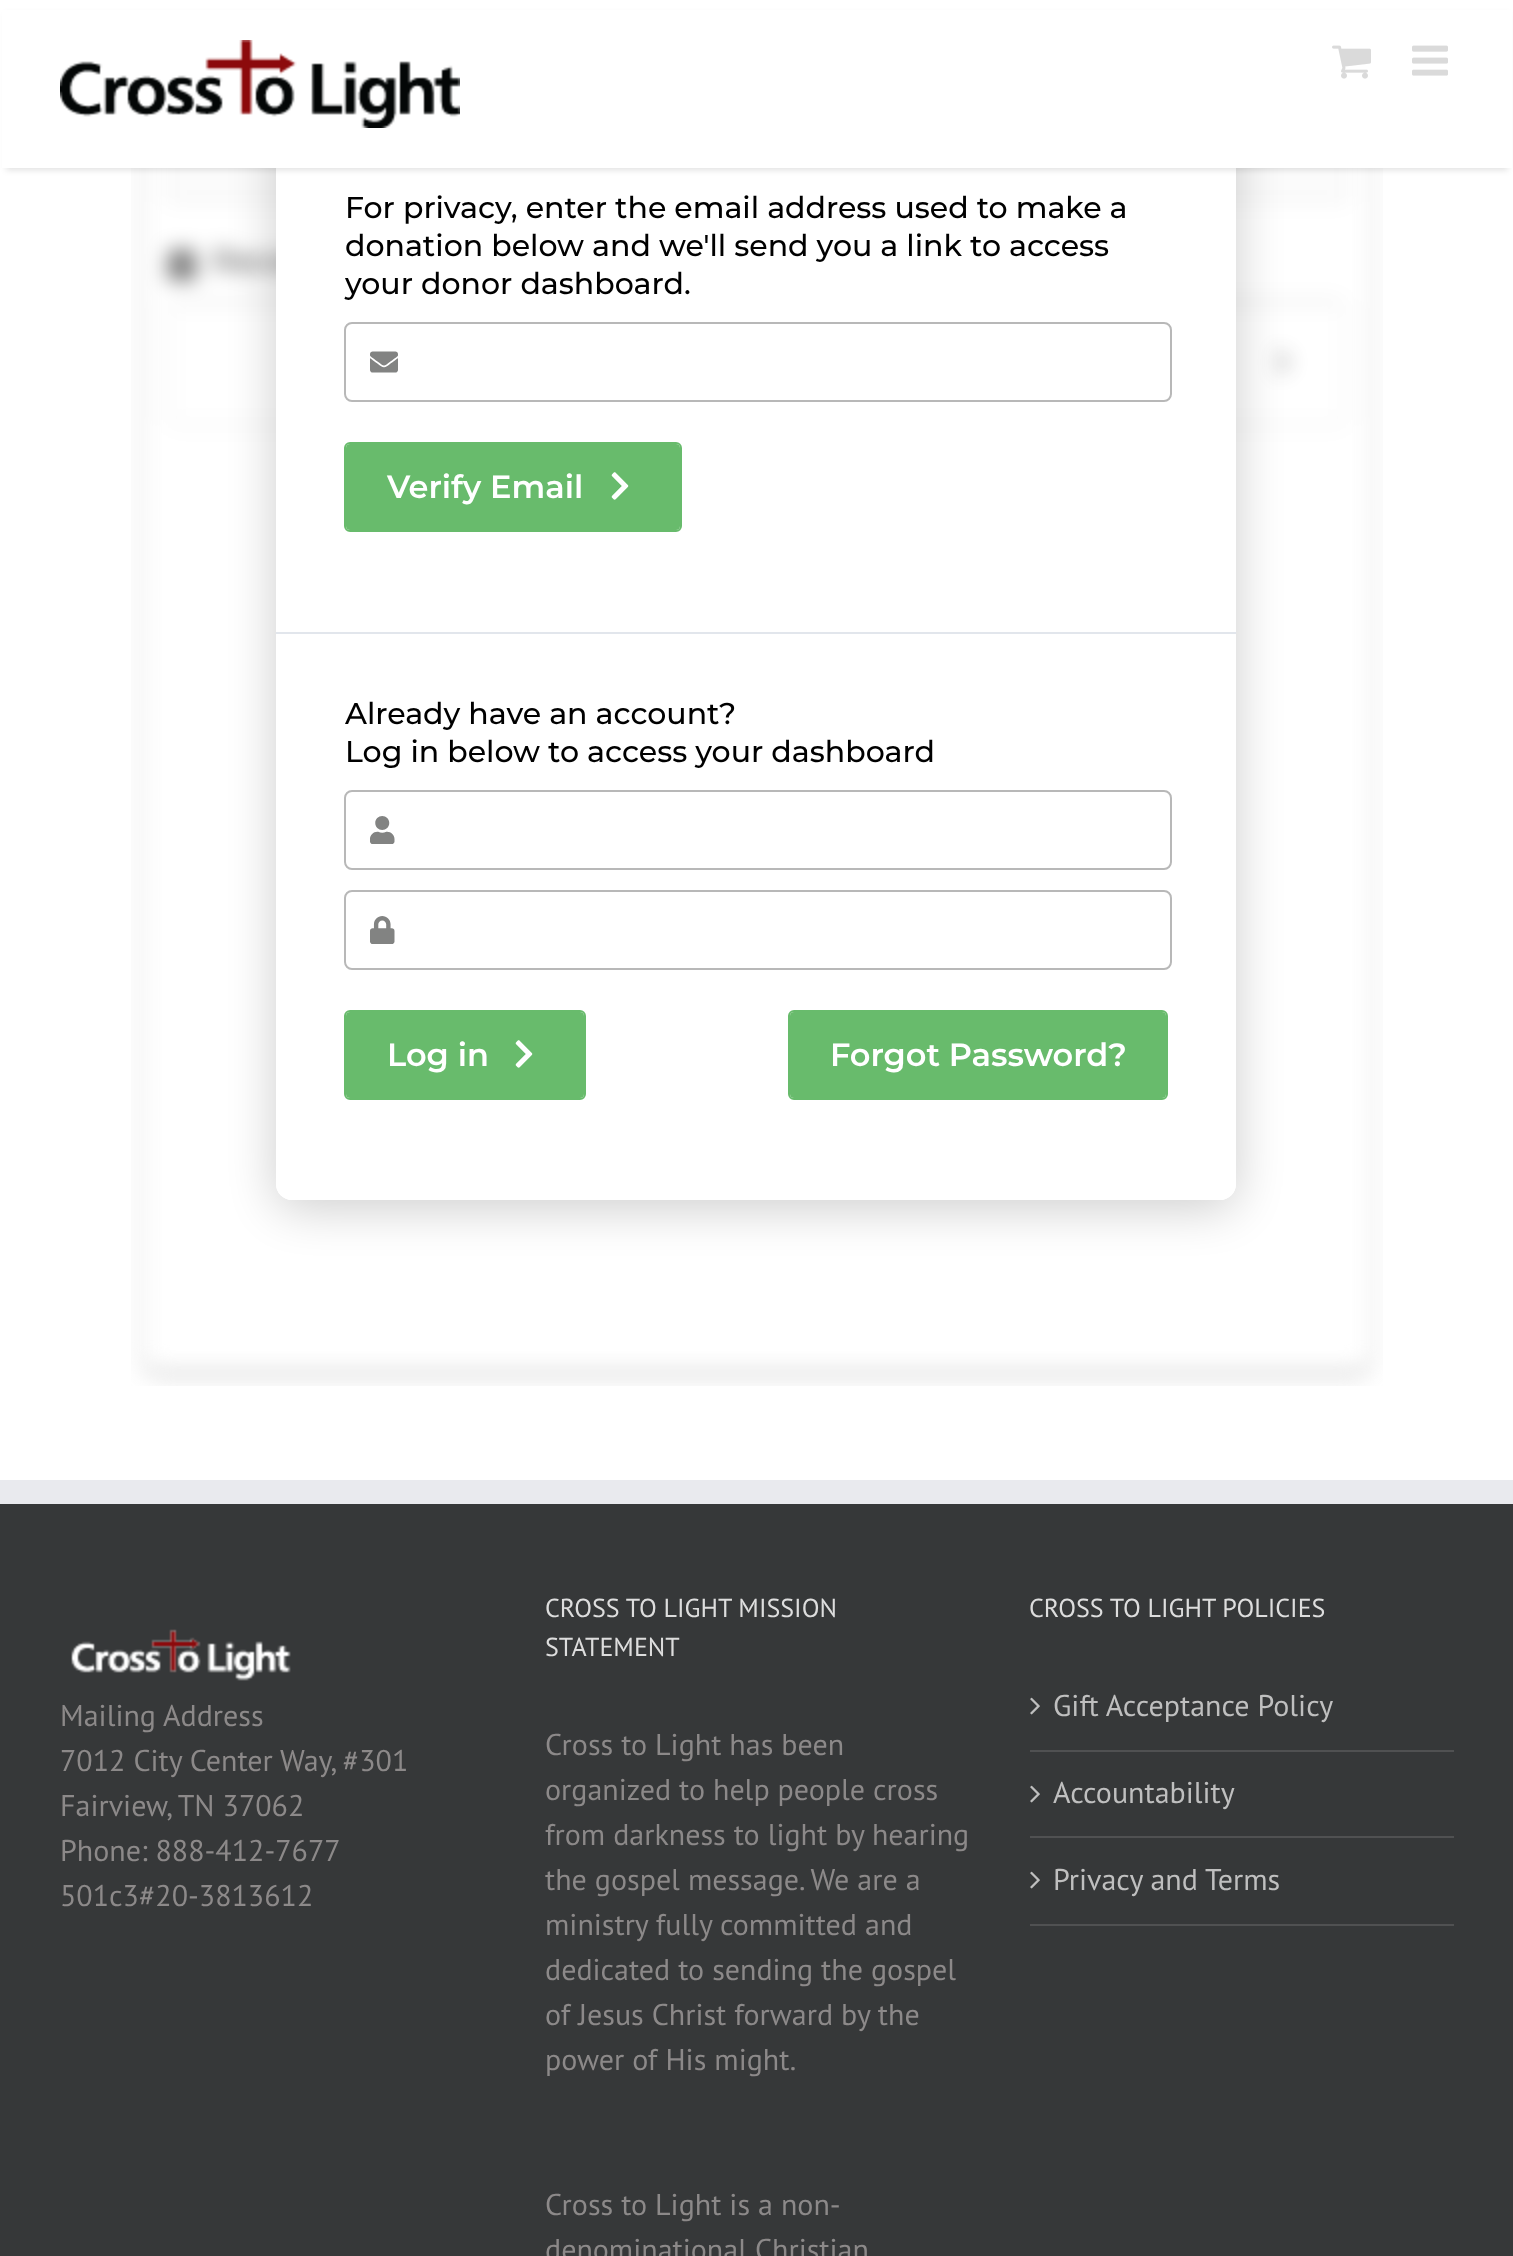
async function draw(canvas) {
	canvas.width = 1513;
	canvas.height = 2256;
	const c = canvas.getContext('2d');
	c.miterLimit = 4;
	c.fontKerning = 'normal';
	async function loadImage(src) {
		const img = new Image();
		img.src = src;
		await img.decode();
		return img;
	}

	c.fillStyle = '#fff';
	c.fillRect(0, 0, 1513, 2256);
	c.drawImage(await loadImage('img4.png'), 131, 168, 1252, 1218);
	c.fillStyle = '#0000001f';
	c.filter = 'blur(3px)';
	c.beginPath();
	c.rect(6, 14, 1502, 156);
	c.fill();
	c.filter = 'none';
	c.fillStyle = '#fff';
	c.fillRect(2, 10, 1510, 158);
	c.drawImage(await loadImage('img1.png'), 60, 40, 400, 88);
	c.drawImage(await loadImage('img2.png'), 1332, 45, 39, 34);
	c.drawImage(await loadImage('img3.png'), 1412, 45, 36, 31);
	c.fillStyle = '#363839';
	c.fillRect(0, 1504, 1513, 752);
	c.fillStyle = '#e9eaee';
	c.fillRect(0, 1480, 1513, 24);
	c.drawImage(await loadImage('img5.png'), 71, 1629, 220, 52);
	c.font = '30px PT Sans';
	c.fillStyle = '#8c8989';
	for (const [text, x, y] of [
		['Mailing Address', 60, 1726],
		['7012 City Center Way, #301', 60, 1771],
		['Fairview, TN 37062', 60, 1816],
		['Phone: 888-412-7677', 60, 1861],
		['501c3#20-3813612', 60, 1906],
	]) {
		c.fillText(text, x, y);
	}
	c.font = '26px PT Sans';
	c.fillStyle = '#ddd';
	c.fillText('CROSS TO LIGHT MISSION', 545, 1617);
	c.fillText('STATEMENT', 545, 1656);
	c.font = '30px PT Sans';
	c.fillStyle = '#8c8989';
	for (const [text, x, y] of [
		['Cross to Light has been', 545, 1755],
		['organized to help people cross', 545, 1800],
		['from darkness to light by hearing', 545, 1845],
		['the gospel message. We are a', 545, 1890],
		['ministry fully committed and', 545, 1935],
		['dedicated to sending the gospel', 545, 1980],
		['of Jesus Christ forward by the', 545, 2025],
		['power of His might.', 545, 2070],
		['Cross to Light is a non-', 545, 2215],
		['denominational Christian', 545, 2260],
	]) {
		c.fillText(text, x, y);
	}
	c.font = '26px PT Sans';
	c.fillStyle = '#ddd';
	c.fillText('CROSS TO LIGHT POLICIES', 1029, 1617);
	c.fillStyle = '#505152';
	c.fillRect(1030, 1750, 424, 2);
	c.drawImage(await loadImage('img6.png'), 1030, 1697, 10, 18);
	c.font = '30px PT Sans';
	c.fillStyle = '#bfbfbf';
	c.fillText('Gift Acceptance Policy', 1053, 1716);
	c.fillStyle = '#505152';
	c.fillRect(1030, 1836, 424, 2);
	c.drawImage(await loadImage('img6.png'), 1030, 1785, 10, 18);
	c.fillStyle = '#bfbfbf';
	c.fillText('Accountability', 1053, 1803);
	c.fillStyle = '#505152';
	c.fillRect(1030, 1924, 424, 2);
	c.drawImage(await loadImage('img6.png'), 1030, 1871, 10, 18);
	c.fillStyle = '#bfbfbf';
	c.fillText('Privacy and Terms', 1053, 1890);
}

draw(document.querySelector('canvas'));
